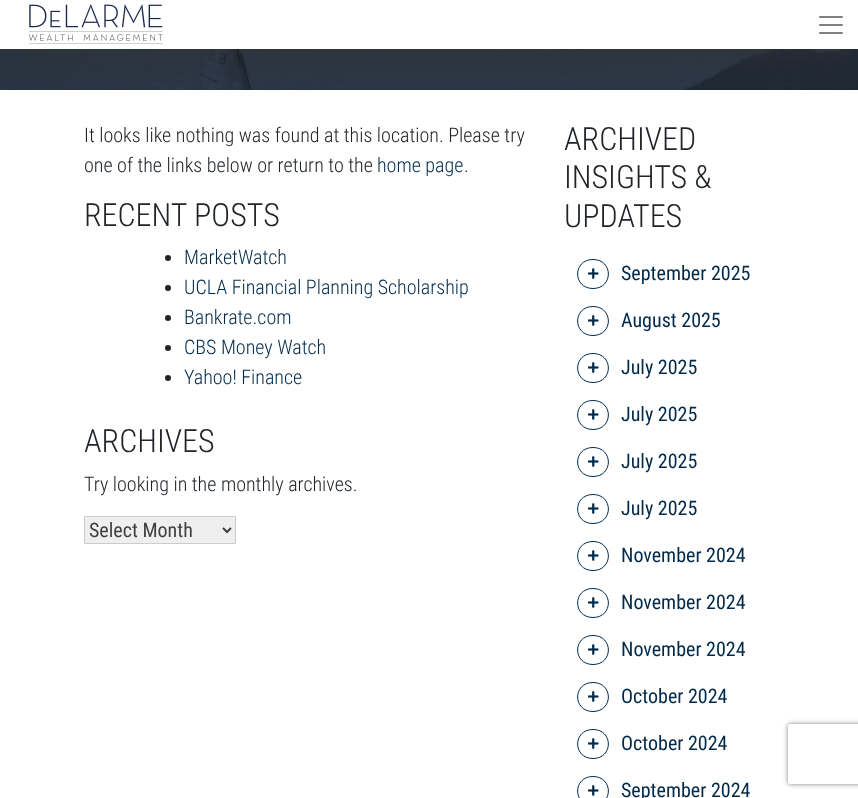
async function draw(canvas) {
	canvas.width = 858;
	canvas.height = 798;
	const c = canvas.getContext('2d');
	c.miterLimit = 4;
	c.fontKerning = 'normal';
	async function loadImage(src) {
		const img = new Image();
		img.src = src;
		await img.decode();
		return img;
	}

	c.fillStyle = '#fff';
	c.fillRect(0, 0, 858, 798);
	c.drawImage(await loadImage('img1.png'), 0, 49, 858, 41);
	c.fillStyle = '#333';
	c.filter = 'blur(20px)';
	c.beginPath();
	c.rect(0, -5, 858, 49);
	c.fill();
	c.filter = 'none';
	c.fillStyle = '#fff';
	c.fillRect(0, 0, 858, 49);
	c.drawImage(await loadImage('img2.png'), 29, 4, 134, 40);
	c.drawImage(await loadImage('img3.png'), 819, 16, 24, 18);
	c.font = '300 20px Roboto Condensed';
	c.fillStyle = '#212529';
	c.fillText('It looks like nothing was found at this location. Please try', 84, 142);
	c.fillText('one of the links below or return to the', 84, 172);
	c.fillStyle = '#012a4a';
	c.fillText('home page', 377, 172);
	c.fillStyle = '#212529';
	c.fillText('.', 464, 172);
	c.font = '300 32px Roboto Condensed';
	c.fillText('RECENT POSTS', 84, 226);
	c.beginPath();
	c.arc(168, 258, 3, 0, 2 * Math.PI);
	c.fill();
	c.font = '300 20px Roboto Condensed';
	c.fillStyle = '#012a4a';
	c.fillText('MarketWatch', 184, 264);
	c.fillStyle = '#212529';
	c.beginPath();
	c.arc(168, 288, 3, 0, 2 * Math.PI);
	c.fill();
	c.fillStyle = '#012a4a';
	c.fillText('UCLA Financial Planning Scholarship', 184, 294);
	c.fillStyle = '#212529';
	c.beginPath();
	c.arc(168, 318, 3, 0, 2 * Math.PI);
	c.fill();
	c.fillStyle = '#012a4a';
	c.fillText('Bankrate.com', 184, 324);
	c.fillStyle = '#212529';
	c.beginPath();
	c.arc(168, 348, 3, 0, 2 * Math.PI);
	c.fill();
	c.fillStyle = '#012a4a';
	c.fillText('CBS Money Watch', 184, 354);
	c.fillStyle = '#212529';
	c.beginPath();
	c.arc(168, 378, 3, 0, 2 * Math.PI);
	c.fill();
	c.fillStyle = '#012a4a';
	c.fillText('Yahoo! Finance', 184, 384);
	c.font = '300 32px Roboto Condensed';
	c.fillStyle = '#212529';
	c.fillText('ARCHIVES', 84, 452);
	c.font = '300 20px Roboto Condensed';
	c.fillText('Try looking in the monthly archives.', 84, 491);
	c.fillStyle = '#efefef';
	c.beginPath();
	c.rect(84.5, 516.5, 151, 27);
	c.fill();
	c.strokeStyle = '#ccc';
	c.stroke();
	c.beginPath();
	c.moveTo(223, 528);
	c.lineTo(227, 532);
	c.lineTo(231, 528);
	c.strokeStyle = '#404040';
	c.lineWidth = 2;
	c.stroke();
	c.font = '20px Roboto Condensed';
	c.fillStyle = '#404040';
	c.fillText('Select Month', 89, 537);
	c.font = '300 32px Roboto Condensed';
	c.fillStyle = '#212529';
	for (const [text, x, y] of [
		['ARCHIVED', 564, 150],
		['INSIGHTS &', 564, 188],
		['UPDATES', 564, 227],
	]) {
		c.fillText(text, x, y);
	}
	c.beginPath();
	c.moveTo(593, 259.5);
	c.bezierCurveTo(613.5, 259.5, 613.5, 288.5, 593, 288.5);
	c.bezierCurveTo(572.5, 288.5, 572.5, 259.5, 593, 259.5);
	c.closePath();
	c.strokeStyle = '#012a4a';
	c.lineWidth = 1;
	c.stroke();
	c.drawImage(await loadImage('img4.png'), 588, 268, 11, 11);
	c.font = '20px Roboto Condensed';
	c.fillStyle = '#012a4a';
	c.fillText('September 2025', 621, 280);
	c.beginPath();
	c.moveTo(593, 306.5);
	c.bezierCurveTo(613.5, 306.5, 613.5, 335.5, 593, 335.5);
	c.bezierCurveTo(572.5, 335.5, 572.5, 306.5, 593, 306.5);
	c.closePath();
	c.stroke();
	c.drawImage(await loadImage('img4.png'), 588, 315, 11, 11);
	c.fillText('August 2025', 621, 327);
	c.beginPath();
	c.moveTo(593, 353.5);
	c.bezierCurveTo(613.5, 353.5, 613.5, 382.5, 593, 382.5);
	c.bezierCurveTo(572.5, 382.5, 572.5, 353.5, 593, 353.5);
	c.closePath();
	c.stroke();
	c.drawImage(await loadImage('img4.png'), 588, 362, 11, 11);
	c.fillText('July 2025', 621, 374);
	c.beginPath();
	c.moveTo(593, 400.5);
	c.bezierCurveTo(613.5, 400.5, 613.5, 429.5, 593, 429.5);
	c.bezierCurveTo(572.5, 429.5, 572.5, 400.5, 593, 400.5);
	c.closePath();
	c.stroke();
	c.drawImage(await loadImage('img4.png'), 588, 409, 11, 11);
	c.fillText('July 2025', 621, 421);
	c.beginPath();
	c.moveTo(593, 447.5);
	c.bezierCurveTo(613.5, 447.5, 613.5, 476.5, 593, 476.5);
	c.bezierCurveTo(572.5, 476.5, 572.5, 447.5, 593, 447.5);
	c.closePath();
	c.stroke();
	c.drawImage(await loadImage('img4.png'), 588, 456, 11, 11);
	c.fillText('July 2025', 621, 468);
	c.beginPath();
	c.moveTo(593, 494.5);
	c.bezierCurveTo(613.5, 494.5, 613.5, 523.5, 593, 523.5);
	c.bezierCurveTo(572.5, 523.5, 572.5, 494.5, 593, 494.5);
	c.closePath();
	c.stroke();
	c.drawImage(await loadImage('img4.png'), 588, 503, 11, 11);
	c.fillText('July 2025', 621, 515);
	c.beginPath();
	c.moveTo(593, 541.5);
	c.bezierCurveTo(613.5, 541.5, 613.5, 570.5, 593, 570.5);
	c.bezierCurveTo(572.5, 570.5, 572.5, 541.5, 593, 541.5);
	c.closePath();
	c.stroke();
	c.drawImage(await loadImage('img4.png'), 588, 550, 11, 11);
	c.fillText('November 2024', 621, 562);
	c.beginPath();
	c.moveTo(593, 588.5);
	c.bezierCurveTo(613.5, 588.5, 613.5, 617.5, 593, 617.5);
	c.bezierCurveTo(572.5, 617.5, 572.5, 588.5, 593, 588.5);
	c.closePath();
	c.stroke();
	c.drawImage(await loadImage('img4.png'), 588, 597, 11, 11);
	c.fillText('November 2024', 621, 609);
	c.beginPath();
	c.moveTo(593, 635.5);
	c.bezierCurveTo(613.5, 635.5, 613.5, 664.5, 593, 664.5);
	c.bezierCurveTo(572.5, 664.5, 572.5, 635.5, 593, 635.5);
	c.closePath();
	c.stroke();
	c.drawImage(await loadImage('img4.png'), 588, 644, 11, 11);
	c.fillText('November 2024', 621, 656);
	c.beginPath();
	c.moveTo(593, 682.5);
	c.bezierCurveTo(613.5, 682.5, 613.5, 711.5, 593, 711.5);
	c.bezierCurveTo(572.5, 711.5, 572.5, 682.5, 593, 682.5);
	c.closePath();
	c.stroke();
	c.drawImage(await loadImage('img4.png'), 588, 691, 11, 11);
	c.fillText('October 2024', 621, 703);
	c.beginPath();
	c.moveTo(593, 729.5);
	c.bezierCurveTo(613.5, 729.5, 613.5, 758.5, 593, 758.5);
	c.bezierCurveTo(572.5, 758.5, 572.5, 729.5, 593, 729.5);
	c.closePath();
	c.stroke();
	c.drawImage(await loadImage('img4.png'), 588, 738, 11, 11);
	c.fillText('October 2024', 621, 750);
	c.beginPath();
	c.moveTo(593, 776.5);
	c.bezierCurveTo(613.5, 776.5, 613.5, 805.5, 593, 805.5);
	c.bezierCurveTo(572.5, 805.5, 572.5, 776.5, 593, 776.5);
	c.closePath();
	c.stroke();
	c.drawImage(await loadImage('img4.png'), 588, 785, 11, 11);
	c.fillText('September 2024', 621, 797);
	c.save();
	c.beginPath();
	c.moveTo(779, 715);
	c.lineTo(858, 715);
	c.lineTo(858, 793);
	c.lineTo(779, 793);
	c.closePath();
	c.moveTo(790, 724);
	c.lineTo(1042, 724);
	c.bezierCurveTo(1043, 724, 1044, 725, 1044, 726);
	c.lineTo(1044, 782);
	c.bezierCurveTo(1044, 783, 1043, 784, 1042, 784);
	c.lineTo(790, 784);
	c.bezierCurveTo(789, 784, 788, 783, 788, 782);
	c.lineTo(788, 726);
	c.bezierCurveTo(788, 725, 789, 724, 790, 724);
	c.closePath();
	c.clip('evenodd');
	c.fillStyle = '#808080';
	c.filter = 'blur(2.5px)';
	c.beginPath();
	c.roundRect(788, 724, 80, 60, 2);
	c.fill();
	c.filter = 'none';
	c.restore();
}

draw(document.querySelector('canvas'));
